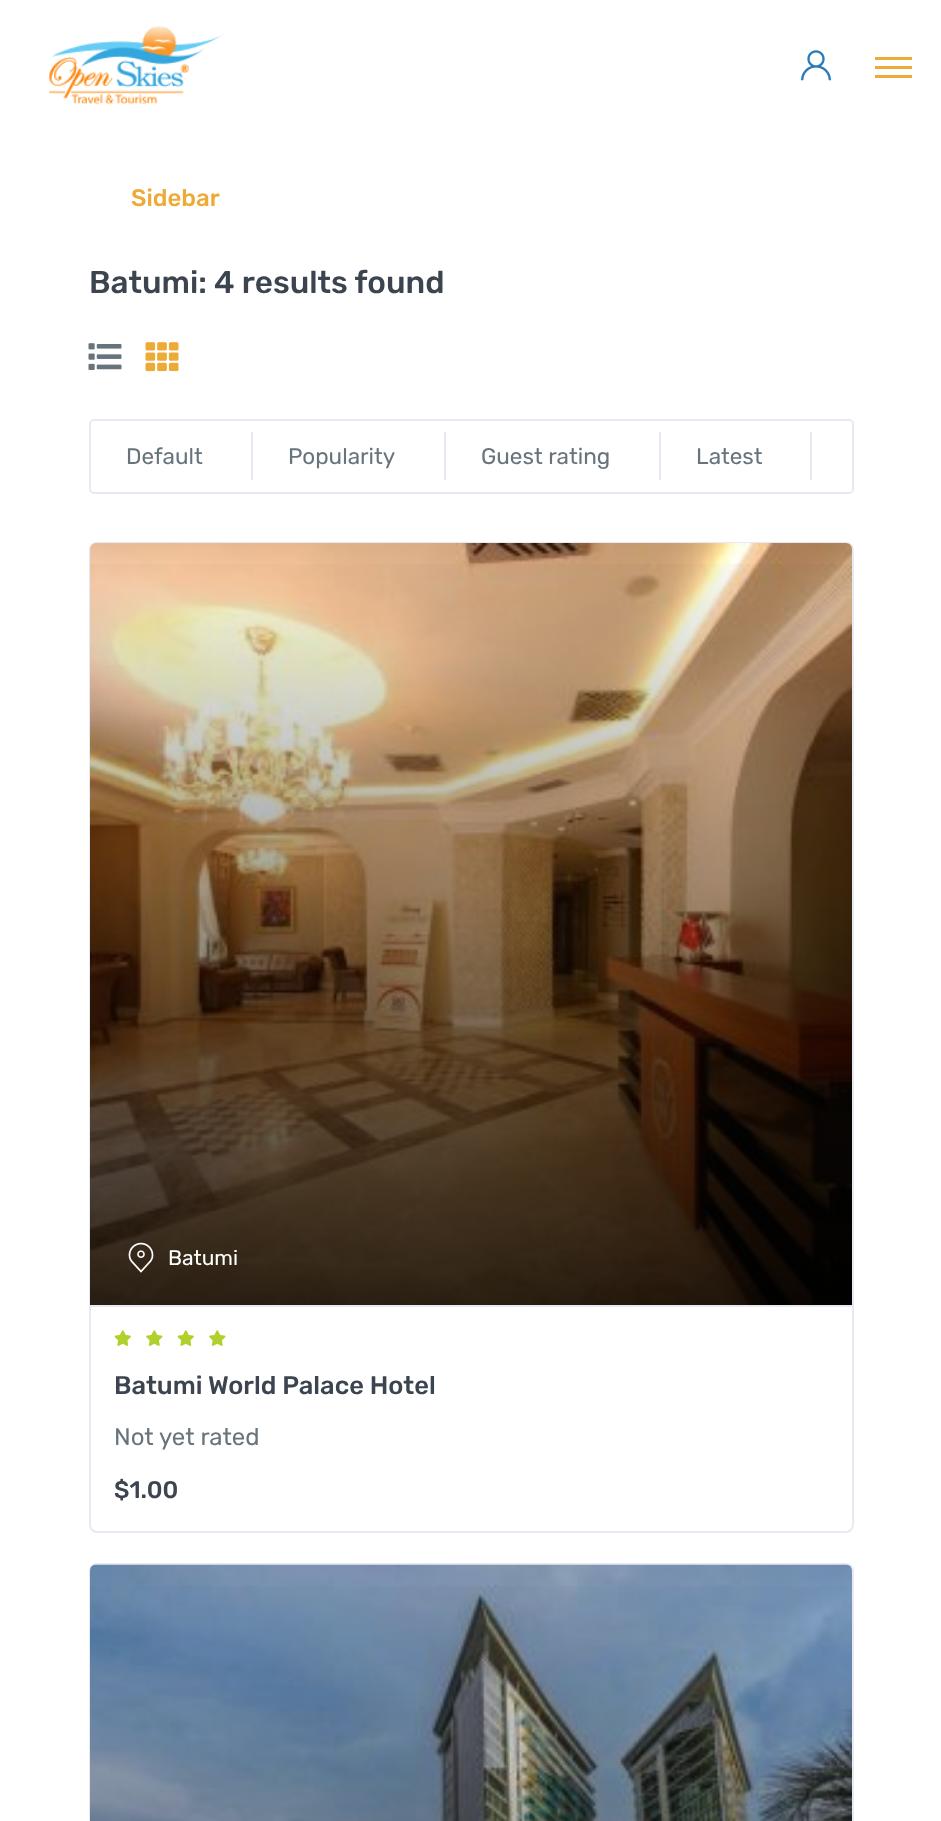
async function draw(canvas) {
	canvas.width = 941;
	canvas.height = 1821;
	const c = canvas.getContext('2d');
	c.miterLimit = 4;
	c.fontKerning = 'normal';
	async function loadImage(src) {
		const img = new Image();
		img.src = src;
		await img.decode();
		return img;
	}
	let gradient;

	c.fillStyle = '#fff';
	c.fillRect(0, 0, 941, 1821);
	c.drawImage(await loadImage('img1.png'), 49, 26, 175, 79);
	c.drawImage(await loadImage('img2.png'), 801, 50, 30, 31);
	for (const [x, y, w, h, color] of [
		[875, 57, 37, 3, '#edaa36'],
		[875, 66, 37, 3, '#edaa36'],
		[875, 75, 37, 3, '#edaa36'],
	]) {
		c.fillStyle = color;
		c.fillRect(x, y, w, h);
	}
	c.font = '500 24px Rubik';
	c.fillText('Sidebar', 131, 206);
	c.font = '500 31.5px Rubik';
	c.fillStyle = '#3b444f';
	c.fillText('Batumi: 4 results found', 89, 293);
	c.drawImage(await loadImage('img3.png'), 88, 343, 34, 27);
	c.drawImage(await loadImage('img4.png'), 145, 342, 34, 30);
	c.beginPath();
	c.roundRect(90, 420, 763, 73, 4);
	c.strokeStyle = '#e7eaf3';
	c.lineWidth = 2;
	c.stroke();
	c.font = '22.5px Rubik';
	c.fillStyle = '#67747c';
	c.fillText('Default', 126, 464);
	c.fillStyle = '#e7eaf3';
	c.fillRect(251, 432, 2, 48);
	c.fillStyle = '#67747c';
	c.fillText('Popularity', 288, 464);
	c.fillStyle = '#e7eaf3';
	c.fillRect(444, 432, 2, 48);
	c.fillStyle = '#67747c';
	c.fillText('Guest rating', 481, 464);
	c.fillStyle = '#e7eaf3';
	c.fillRect(659, 432, 2, 48);
	c.fillStyle = '#67747c';
	c.fillText('Latest', 696, 464);
	c.fillStyle = '#e7eaf3';
	c.fillRect(810, 432, 2, 48);
	c.beginPath();
	c.roundRect(90, 543, 763, 989, 7);
	c.stroke();
	c.fillRect(90, 1305, 762, 2);
	c.drawImage(await loadImage('img5.png'), 90, 543, 762, 762);
	gradient = c.createLinearGradient(471, 543, 471, 1305);
	gradient.addColorStop(0, '#00000000');
	gradient.addColorStop(1, '#000000cc');
	c.fillStyle = gradient;
	c.fillRect(90, 564, 762, 741);
	c.drawImage(await loadImage('img6.png'), 128, 1242, 26, 31);
	c.font = '21px Rubik';
	c.fillStyle = '#fff';
	c.fillText('Batumi', 168, 1265);
	c.drawImage(await loadImage('img7.png'), 114, 1330, 17, 16);
	c.drawImage(await loadImage('img8.png'), 146, 1330, 17, 16);
	c.drawImage(await loadImage('img7.png'), 177, 1330, 17, 16);
	c.drawImage(await loadImage('img8.png'), 209, 1330, 17, 16);
	c.font = '500 25.5px Rubik';
	c.fillStyle = '#3b444f';
	c.fillText('Batumi World Palace Hotel', 114, 1394);
	c.font = '24px Rubik';
	c.fillStyle = '#67747c';
	c.fillText('Not yet rated', 114, 1445);
	c.font = '500 24px Rubik';
	c.fillStyle = '#3b444f';
	c.fillText('$1.00', 114, 1498);
	c.beginPath();
	c.roundRect(90, 1564, 763, 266, 7);
	c.stroke();
	c.drawImage(await loadImage('img9.png'), 90, 1564, 762, 257);
	gradient = c.createLinearGradient(471, 1565, 471, 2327);
	gradient.addColorStop(0, '#00000000');
	gradient.addColorStop(1, '#000000cc');
	c.fillStyle = gradient;
	c.fillRect(90, 1586, 762, 235);
}

draw(document.querySelector('canvas'));
